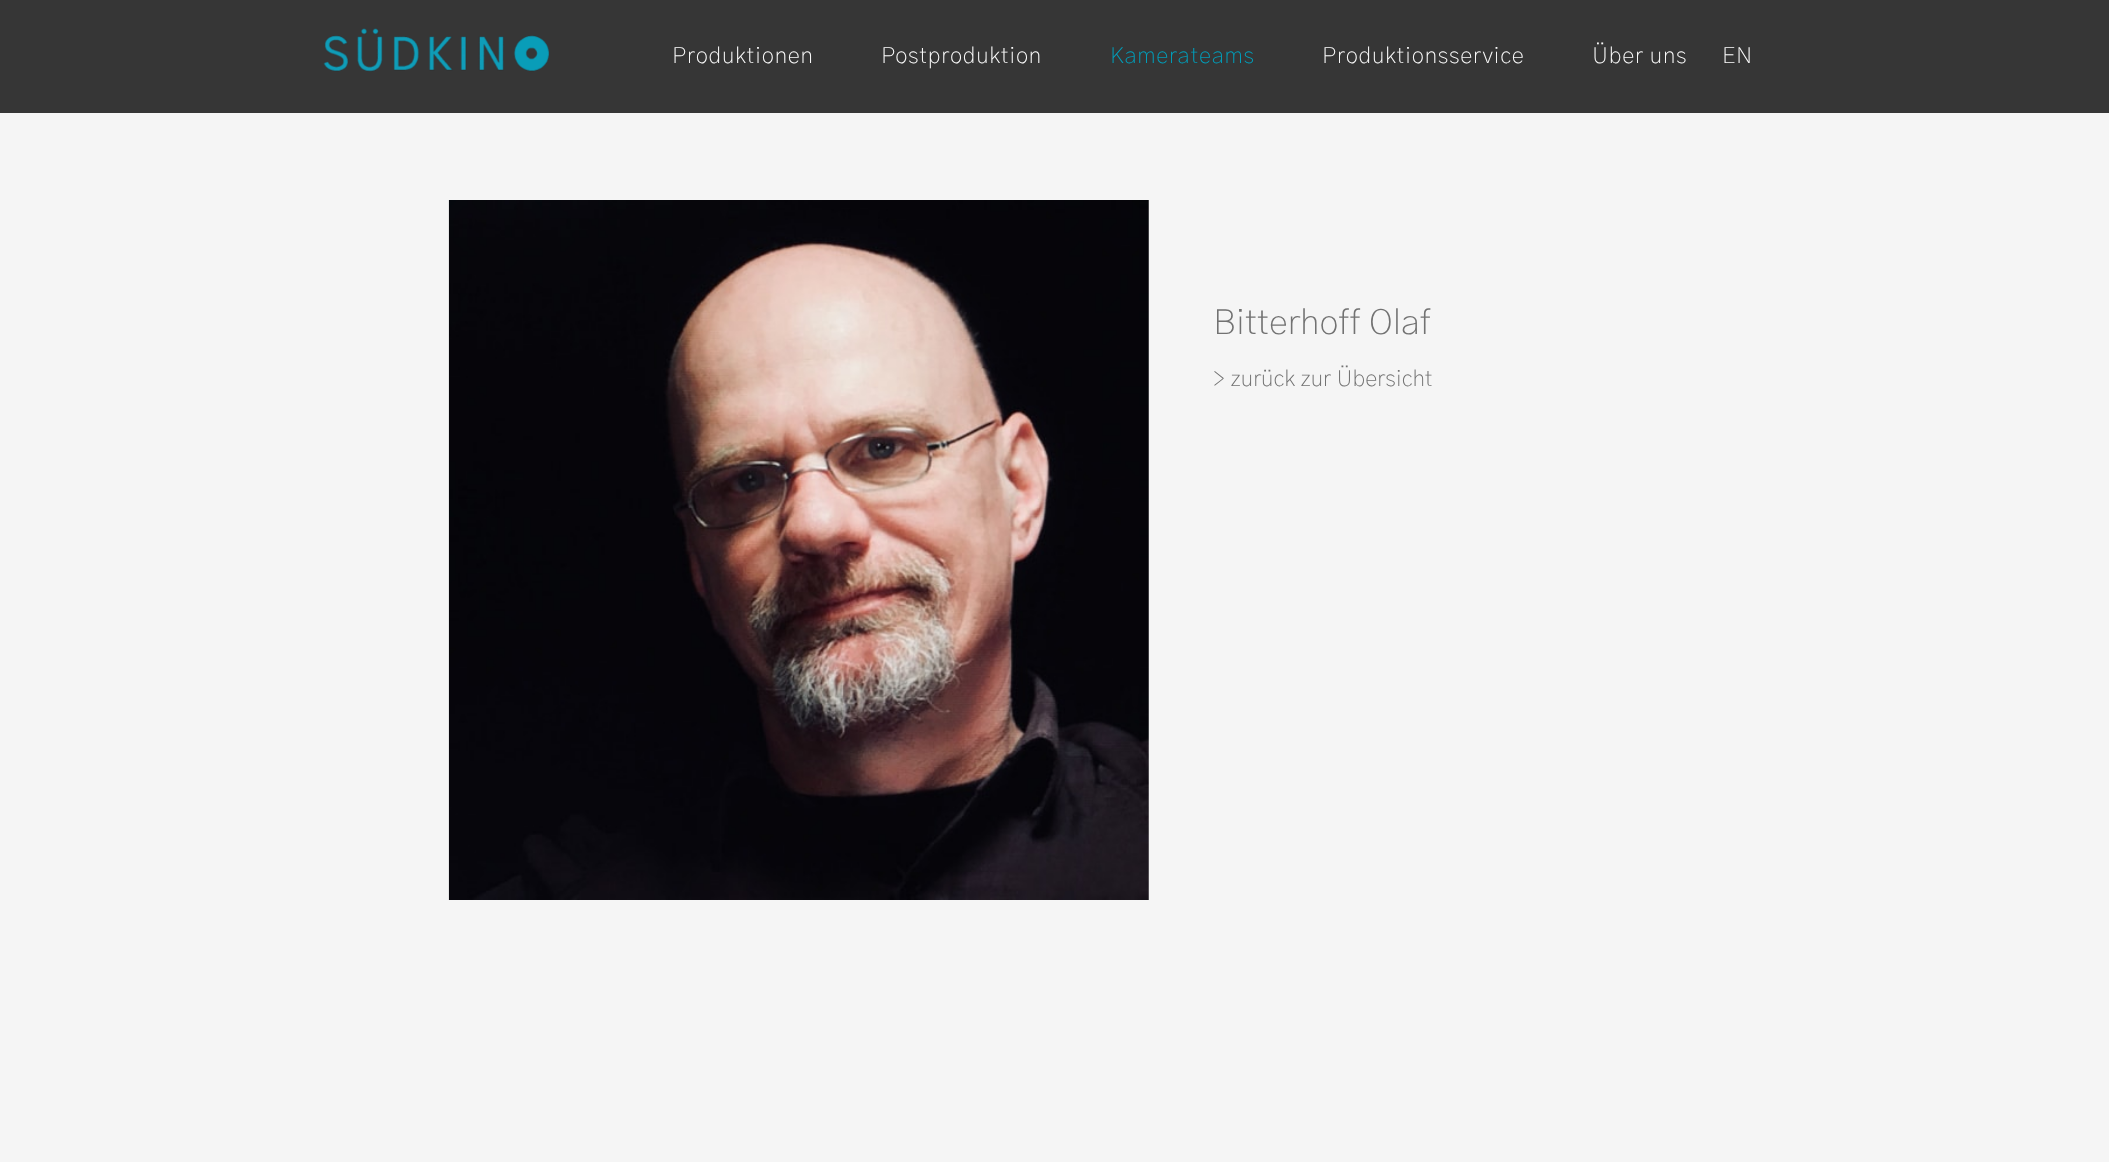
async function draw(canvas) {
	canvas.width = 2109;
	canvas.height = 1162;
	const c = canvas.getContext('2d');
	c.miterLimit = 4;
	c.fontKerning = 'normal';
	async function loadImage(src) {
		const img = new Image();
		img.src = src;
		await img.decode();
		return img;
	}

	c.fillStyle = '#f5f5f5';
	c.fillRect(0, 0, 2109, 1162);
	c.fillStyle = '#363636';
	c.fillRect(0, 0, 2109, 113);
	c.drawImage(await loadImage('img1.png'), 323, 28, 226, 44);
	c.letterSpacing = '0.75px';
	c.font = '300 22.5px "Gothic A1"';
	c.fillStyle = '#fbfbfb';
	c.fillText('Produktionen', 672, 63);
	c.fillText('Postproduktion', 881, 63);
	c.fillStyle = '#009eba';
	c.fillText('Kamerateams', 1110, 63);
	c.fillStyle = '#fbfbfb';
	for (const [text, x, y] of [
		['Produktionsservice', 1322, 63],
		['Über uns', 1592, 63],
		['EN', 1722, 63],
	]) {
		c.fillText(text, x, y);
	}
	c.drawImage(await loadImage('img2.png'), 448, 200, 701, 700);
	c.letterSpacing = '0px';
	c.font = '300 35px "Gothic A1"';
	c.fillStyle = '#727272';
	c.fillText('Bitterhoff Olaf', 1213, 334);
	c.font = '300 22.5px "Gothic A1"';
	c.fillText('> zurück zur Übersicht', 1213, 386);
}

draw(document.querySelector('canvas'));
